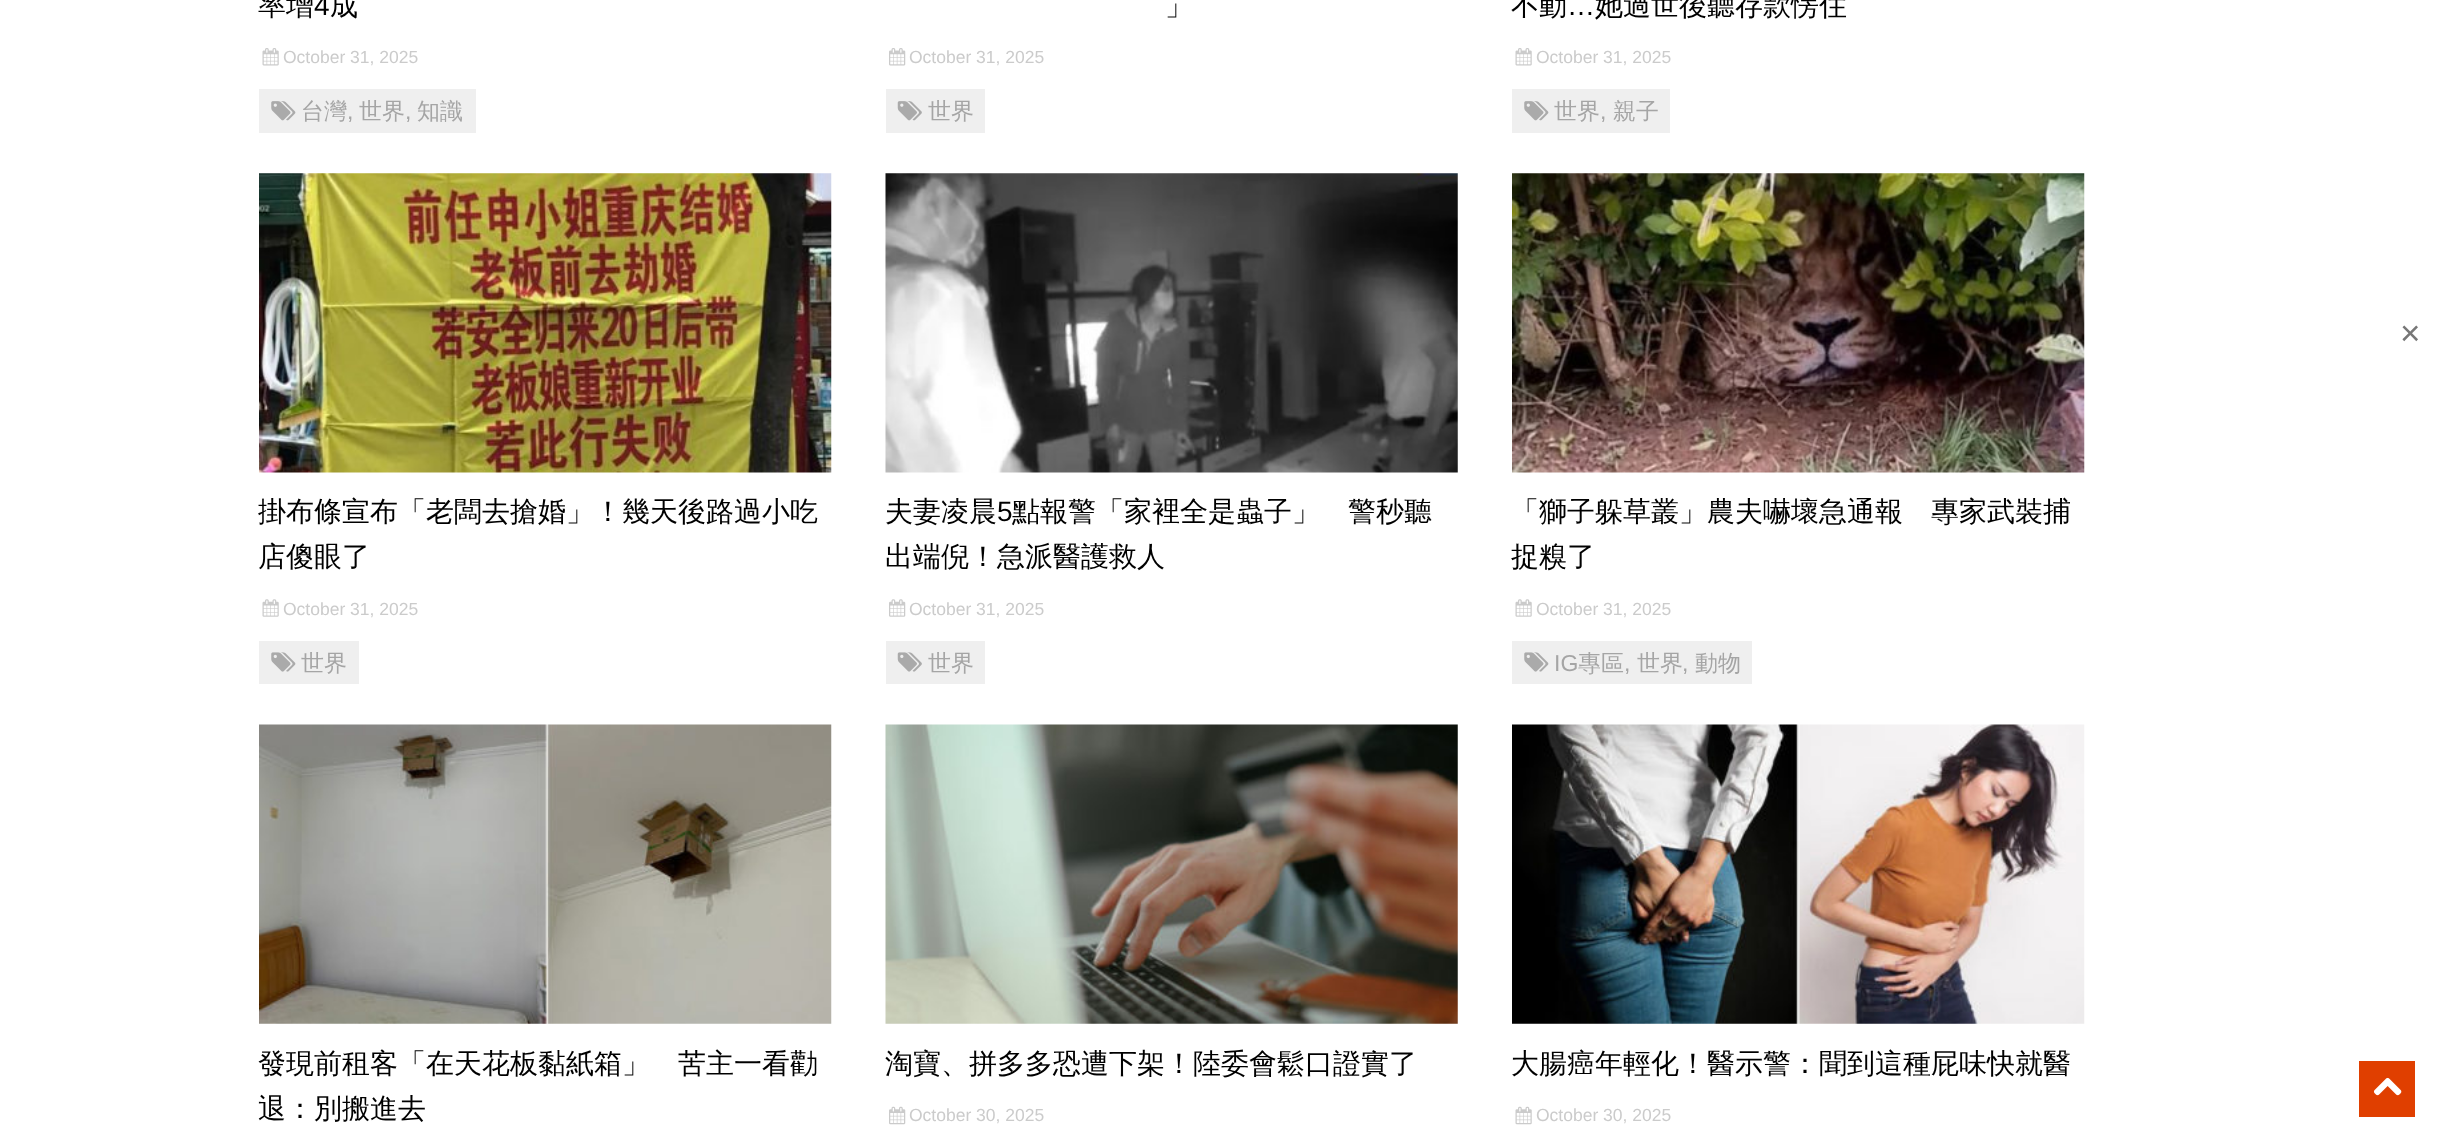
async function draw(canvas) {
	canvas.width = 2441;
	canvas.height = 1142;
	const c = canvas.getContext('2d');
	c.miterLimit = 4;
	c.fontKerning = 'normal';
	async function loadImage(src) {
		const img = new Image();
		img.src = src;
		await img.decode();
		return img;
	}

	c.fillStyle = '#fff';
	c.fillRect(0, 0, 2441, 1142);
	c.font = '500 28px WenQuanYi Zen Hei';
	c.fillStyle = '#000';
	c.fillText('率增', 258, 15);
	c.font = '28px Liberation Sans';
	c.fillText('4', 314, 15);
	c.font = '500 28px WenQuanYi Zen Hei';
	c.fillText('成', 330, 15);
	c.drawImage(await loadImage('img1.png'), 262, 48, 17, 18);
	c.font = '17.5px Liberation Sans';
	c.fillStyle = '#cbcbcb';
	c.fillText('October 31, 2025', 283, 63);
	c.fillStyle = '#efefef';
	c.fillRect(259, 89, 217, 44);
	c.drawImage(await loadImage('img2.png'), 271, 101, 25, 20);
	c.font = '500 23px WenQuanYi Zen Hei';
	c.fillStyle = '#a5a5a5';
	c.fillText('台灣', 301, 119);
	c.font = '23px Liberation Sans';
	c.fillText(',', 347, 119);
	c.font = '500 23px WenQuanYi Zen Hei';
	c.fillText('世界', 359, 119);
	c.font = '23px Liberation Sans';
	c.fillText(',', 405, 119);
	c.font = '500 23px WenQuanYi Zen Hei';
	c.fillText('知識', 417, 119);
	c.font = '500 28px WenQuanYi Zen Hei';
	c.fillStyle = '#000';
	c.fillText('」', 1165, 15);
	c.drawImage(await loadImage('img3.png'), 889, 48, 17, 18);
	c.font = '17.5px Liberation Sans';
	c.fillStyle = '#cbcbcb';
	c.fillText('October 31, 2025', 909, 63);
	c.fillStyle = '#efefef';
	c.fillRect(886, 89, 99, 44);
	c.drawImage(await loadImage('img4.png'), 897, 101, 25, 20);
	c.font = '500 23px WenQuanYi Zen Hei';
	c.fillStyle = '#a5a5a5';
	c.fillText('世界', 928, 119);
	c.font = '500 28px WenQuanYi Zen Hei';
	c.fillStyle = '#000';
	c.fillText('不動', 1511, 15);
	c.font = '28px Liberation Sans';
	c.fillText('…', 1567, 15);
	c.font = '500 28px WenQuanYi Zen Hei';
	c.fillText('她過世後聽存款愣住', 1595, 15);
	c.drawImage(await loadImage('img1.png'), 1515, 48, 17, 18);
	c.font = '17.5px Liberation Sans';
	c.fillStyle = '#cbcbcb';
	c.fillText('October 31, 2025', 1536, 63);
	c.fillStyle = '#efefef';
	c.fillRect(1512, 89, 158, 44);
	c.drawImage(await loadImage('img2.png'), 1524, 101, 25, 20);
	c.font = '500 23px WenQuanYi Zen Hei';
	c.fillStyle = '#a5a5a5';
	c.fillText('世界', 1554, 119);
	c.font = '23px Liberation Sans';
	c.fillText(',', 1600, 119);
	c.font = '500 23px WenQuanYi Zen Hei';
	c.fillText('親子', 1613, 119);
	c.drawImage(await loadImage('img5.png'), 259, 173, 573, 300);
	c.font = '500 28px WenQuanYi Zen Hei';
	c.fillStyle = '#000';
	c.fillText('掛布條宣布「老闆去搶婚」！幾天後路過小吃', 258, 521);
	c.fillText('店傻眼了', 258, 566);
	c.drawImage(await loadImage('img6.png'), 262, 599, 17, 18);
	c.font = '17.5px Liberation Sans';
	c.fillStyle = '#cbcbcb';
	c.fillText('October 31, 2025', 283, 615);
	c.fillStyle = '#efefef';
	c.fillRect(259, 641, 100, 43);
	c.drawImage(await loadImage('img7.png'), 271, 652, 25, 20);
	c.font = '500 23px WenQuanYi Zen Hei';
	c.fillStyle = '#a5a5a5';
	c.fillText('世界', 301, 671);
	c.drawImage(await loadImage('img8.png'), 885, 173, 573, 300);
	c.font = '500 28px WenQuanYi Zen Hei';
	c.fillStyle = '#000';
	c.fillText('夫妻凌晨', 885, 521);
	c.font = '28px Liberation Sans';
	c.fillText('5', 997, 521);
	c.font = '500 28px WenQuanYi Zen Hei';
	c.fillText('點報警「家裡全是蟲子」　警秒聽', 1012, 521);
	c.fillText('出端倪！急派醫護救人', 885, 566);
	c.drawImage(await loadImage('img9.png'), 889, 599, 17, 18);
	c.font = '17.5px Liberation Sans';
	c.fillStyle = '#cbcbcb';
	c.fillText('October 31, 2025', 909, 615);
	c.fillStyle = '#efefef';
	c.fillRect(886, 641, 99, 43);
	c.drawImage(await loadImage('img10.png'), 897, 652, 25, 20);
	c.font = '500 23px WenQuanYi Zen Hei';
	c.fillStyle = '#a5a5a5';
	c.fillText('世界', 928, 671);
	c.drawImage(await loadImage('img11.png'), 1512, 173, 573, 300);
	c.font = '500 28px WenQuanYi Zen Hei';
	c.fillStyle = '#000';
	c.fillText('「獅子躲草叢」農夫嚇壞急通報　專家武裝捕', 1511, 521);
	c.fillText('捉糗了', 1511, 566);
	c.drawImage(await loadImage('img6.png'), 1515, 599, 17, 18);
	c.font = '17.5px Liberation Sans';
	c.fillStyle = '#cbcbcb';
	c.fillText('October 31, 2025', 1536, 615);
	c.fillStyle = '#efefef';
	c.fillRect(1512, 641, 240, 43);
	c.drawImage(await loadImage('img7.png'), 1524, 652, 25, 20);
	c.font = '23px Liberation Sans';
	c.fillStyle = '#a5a5a5';
	c.fillText('IG', 1554, 671);
	c.font = '500 23px WenQuanYi Zen Hei';
	c.fillText('專區', 1578, 671);
	c.font = '23px Liberation Sans';
	c.fillText(',', 1624, 671);
	c.font = '500 23px WenQuanYi Zen Hei';
	c.fillText('世界', 1637, 671);
	c.font = '23px Liberation Sans';
	c.fillText(',', 1682, 671);
	c.font = '500 23px WenQuanYi Zen Hei';
	c.fillText('動物', 1695, 671);
	c.drawImage(await loadImage('img12.png'), 259, 724, 573, 300);
	c.font = '500 28px WenQuanYi Zen Hei';
	c.fillStyle = '#000';
	c.fillText('發現前租客「在天花板黏紙箱」　苦主一看勸', 258, 1073);
	c.fillText('退：別搬進去', 258, 1118);
	c.drawImage(await loadImage('img13.png'), 885, 724, 573, 300);
	c.fillText('淘寶、拼多多恐遭下架！陸委會鬆口證實了', 885, 1073);
	c.drawImage(await loadImage('img14.png'), 889, 1106, 17, 19);
	c.font = '17.5px Liberation Sans';
	c.fillStyle = '#cbcbcb';
	c.fillText('October 30, 2025', 909, 1121);
	c.drawImage(await loadImage('img15.png'), 1512, 724, 573, 300);
	c.font = '500 28px WenQuanYi Zen Hei';
	c.fillStyle = '#000';
	c.fillText('大腸癌年輕化！醫示警：聞到這種屁味快就醫', 1511, 1073);
	c.drawImage(await loadImage('img16.png'), 1515, 1106, 17, 19);
	c.font = '17.5px Liberation Sans';
	c.fillStyle = '#cbcbcb';
	c.fillText('October 30, 2025', 1536, 1121);
	c.font = '35px Liberation Sans';
	c.fillStyle = '#777';
	c.fillText('×', 2400, 345);
	c.fillStyle = '#e03f00';
	c.fillRect(2359, 1061, 56, 56);
	c.drawImage(await loadImage('img17.png'), 2373, 1077, 29, 19);
}

draw(document.querySelector('canvas'));
